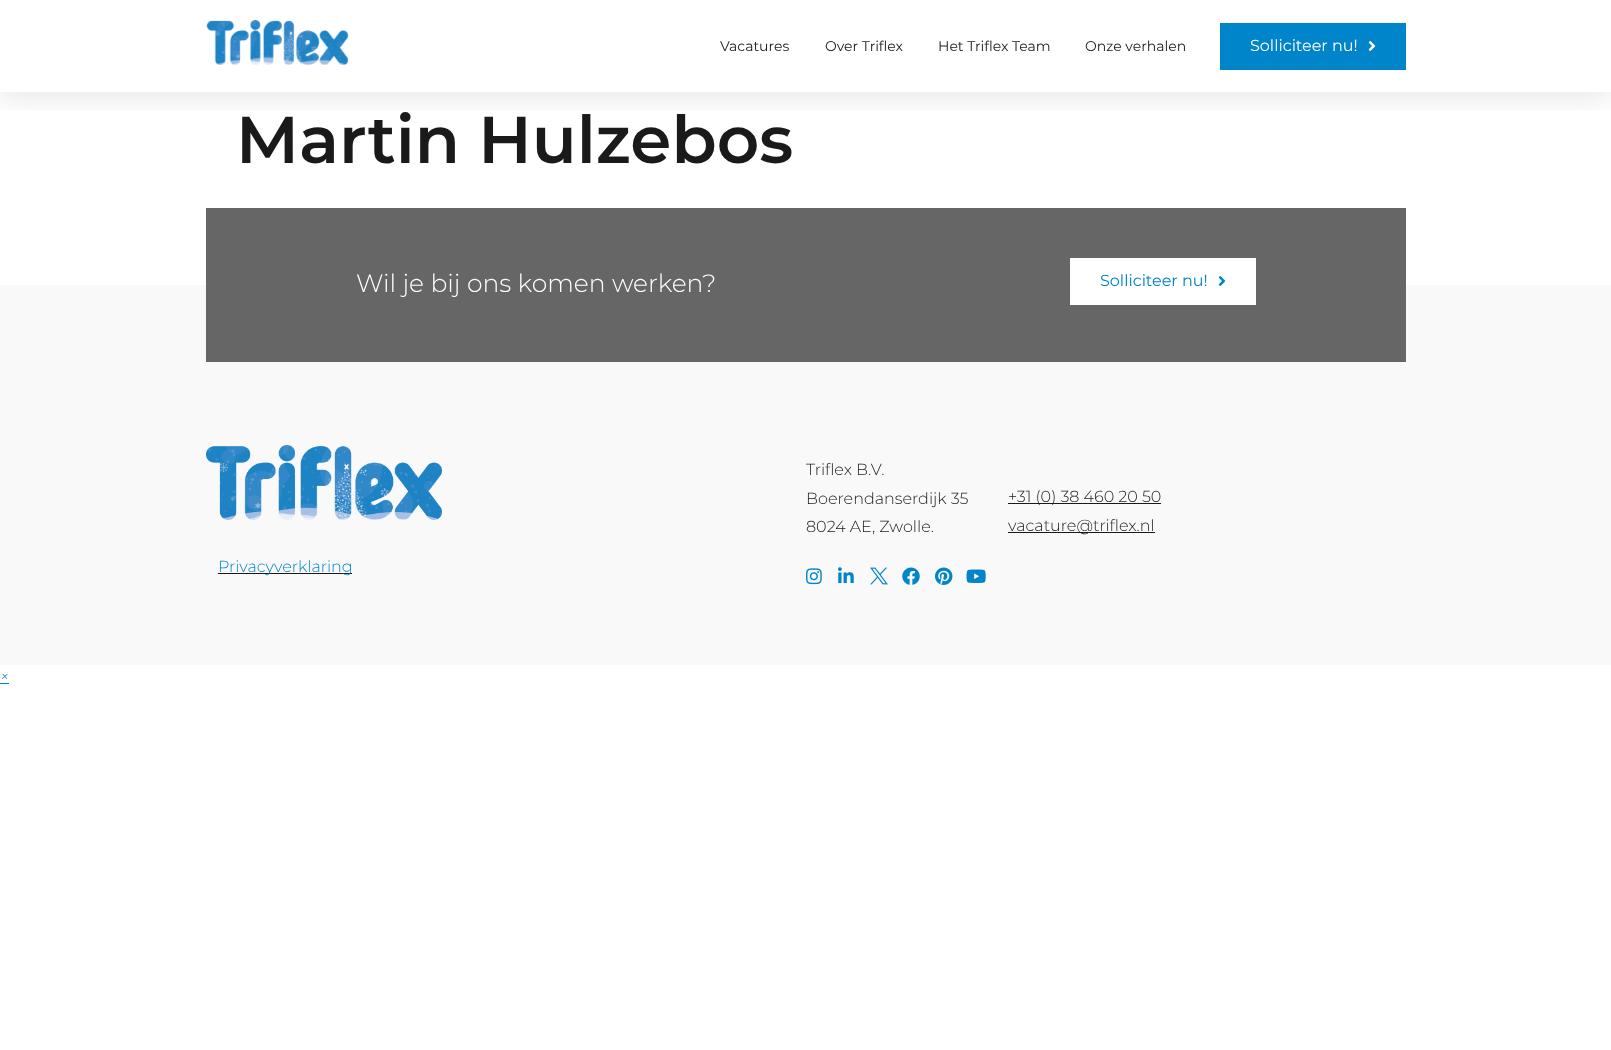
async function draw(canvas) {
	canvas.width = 1611;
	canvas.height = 1050;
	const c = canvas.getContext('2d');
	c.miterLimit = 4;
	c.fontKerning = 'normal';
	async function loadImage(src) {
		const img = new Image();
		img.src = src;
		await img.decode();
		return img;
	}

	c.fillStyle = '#fff';
	c.fillRect(0, 0, 1611, 1050);
	c.save();
	c.beginPath();
	c.rect(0, 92, 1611, 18);
	c.clip();
	c.fillStyle = '#0000001a';
	c.filter = 'blur(15px)';
	c.beginPath();
	c.rect(0, 5, 1611, 92);
	c.fill();
	c.filter = 'none';
	c.restore();
	c.drawImage(await loadImage('img1.png'), 206, 20, 143, 45);
	c.font = '14px Montserrat';
	c.fillStyle = '#1a1a1a';
	for (const [text, x, y] of [
		['Vacatures', 720, 51],
		['Over Triflex', 825, 51],
		['Het Triflex Team', 938, 51],
		['Onze verhalen', 1085, 51],
	]) {
		c.fillText(text, x, y);
	}
	c.fillStyle = '#0084ca';
	c.fillRect(1220, 23, 186, 47);
	c.font = '16px Montserrat';
	c.fillStyle = '#fff';
	c.fillText('Solliciteer nu!', 1250, 51);
	c.drawImage(await loadImage('img2.png'), 1368, 41, 8, 10);
	c.font = '600 66px Montserrat';
	c.fillStyle = '#1a1a1a';
	c.fillText('Martin Hulzebos', 236, 163);
	c.fillStyle = '#f9f9f9';
	c.fillRect(0, 285, 1611, 380);
	c.fillStyle = '#666';
	c.fillRect(206, 208, 1200, 154);
	c.font = '300 25px Montserrat';
	c.fillStyle = '#fff';
	c.fillText('Wil je bij ons komen werken?', 356, 292);
	c.fillRect(1070, 258, 186, 47);
	c.font = '16px Montserrat';
	c.fillStyle = '#0084ca';
	c.fillText('Solliciteer nu!', 1100, 286);
	c.drawImage(await loadImage('img3.png'), 1218, 276, 8, 10);
	c.font = '300 16px Montserrat';
	c.fillStyle = '#1a1a1a';
	for (const [text, x, y] of [
		['Triflex B.V.', 806, 475],
		['Boerendanserdijk 35', 806, 504],
		['8024 AE, Zwolle.', 806, 532],
	]) {
		c.fillText(text, x, y);
	}
	c.fillRect(1008, 503, 153, 1);
	c.fillText('+31 (0) 38 460 20 50', 1008, 502);
	c.fillRect(1008, 532, 147, 1);
	c.fillText('vacature@triflex.nl', 1008, 531);
	c.drawImage(await loadImage('img4.png'), 806, 568, 16, 17);
	c.drawImage(await loadImage('img5.png'), 838, 567, 16, 16);
	c.drawImage(await loadImage('img6.png'), 870, 567, 18, 18);
	c.drawImage(await loadImage('img7.png'), 902, 567, 18, 18);
	c.drawImage(await loadImage('img8.png'), 935, 567, 18, 18);
	c.drawImage(await loadImage('img9.png'), 966, 569, 20, 14);
	c.drawImage(await loadImage('img10.png'), 206, 445, 236, 75);
	c.fillRect(218, 573, 134, 1);
	c.fillStyle = '#0084ca';
	c.fillText('Privacyverklaring', 218, 572);
	c.font = 'italic 300 16px Montserrat';
	c.fillText('×', 0, 682);
	c.fillRect(0, 683, 9, 1);
}

draw(document.querySelector('canvas'));
